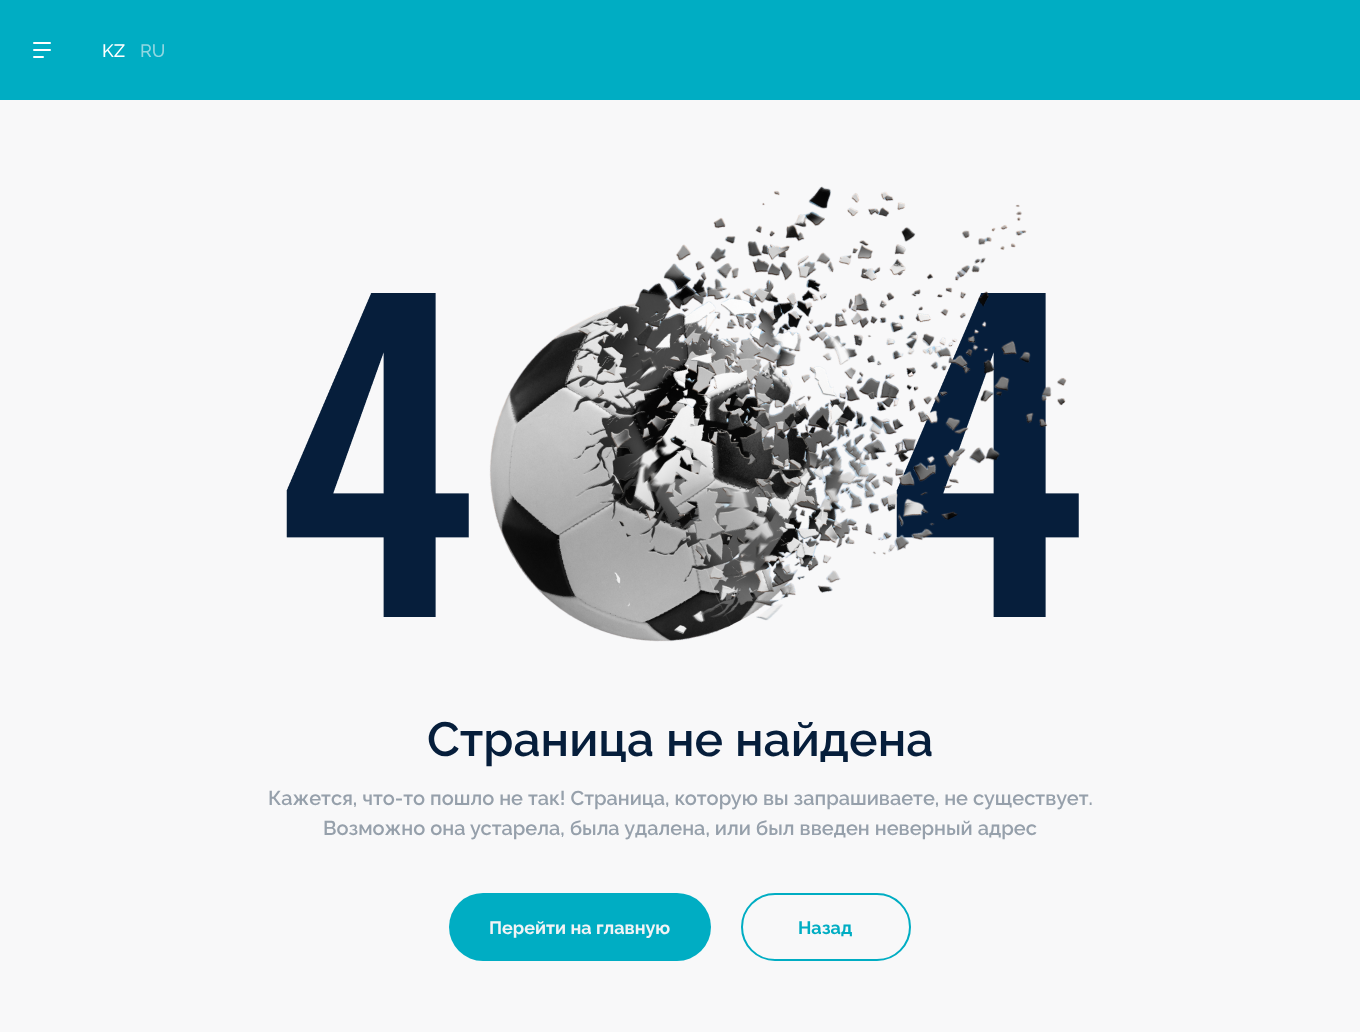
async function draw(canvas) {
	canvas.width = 1360;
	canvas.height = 1032;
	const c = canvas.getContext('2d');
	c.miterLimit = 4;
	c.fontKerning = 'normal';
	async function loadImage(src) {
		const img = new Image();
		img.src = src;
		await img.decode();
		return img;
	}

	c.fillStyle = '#f8f8f9';
	c.fillRect(0, 0, 1360, 1032);
	c.fillStyle = '#00adc3';
	c.fillRect(0, 0, 1360, 100);
	c.fillStyle = '#fff';
	c.beginPath();
	c.roundRect(33, 42, 18, 2, 1);
	c.fill();
	c.beginPath();
	c.roundRect(33, 49, 18, 2, 1);
	c.fill();
	c.beginPath();
	c.roundRect(33, 56, 11, 2, 1);
	c.fill();
	c.font = '500 18px Raleway';
	c.fillText('KZ', 102, 57);
	c.fillStyle = '#91d7e1';
	c.fillText('RU', 140, 57);
	c.drawImage(await loadImage('img1.png'), 286, 186, 793, 456);
	c.font = '600 48px Raleway';
	c.fillStyle = '#061e3b';
	c.fillText('Страница не найдена', 427, 756);
	c.font = '600 20px Raleway';
	c.fillStyle = '#96a0ab';
	c.fillText('Кажется, что-то пошло не так! Страница, которую вы запрашиваете, не существует.', 268, 805);
	c.wordSpacing = '0.1px';
	c.fillText('Возможно она устарела, была удалена, или был введен неверный адрес', 323, 835);
	c.fillStyle = '#00adc3';
	c.beginPath();
	c.roundRect(449, 893, 262, 68, 34);
	c.fill();
	c.wordSpacing = '0px';
	c.font = 'bold 18px Raleway';
	c.fillStyle = '#f2f3f5';
	c.fillText('Перейти на главную', 489, 934);
	c.beginPath();
	c.roundRect(742, 894, 168, 66, 33);
	c.strokeStyle = '#00adc3';
	c.lineWidth = 2;
	c.stroke();
	c.fillStyle = '#00adc3';
	c.fillText('Назад', 798, 934);
}

draw(document.querySelector('canvas'));
